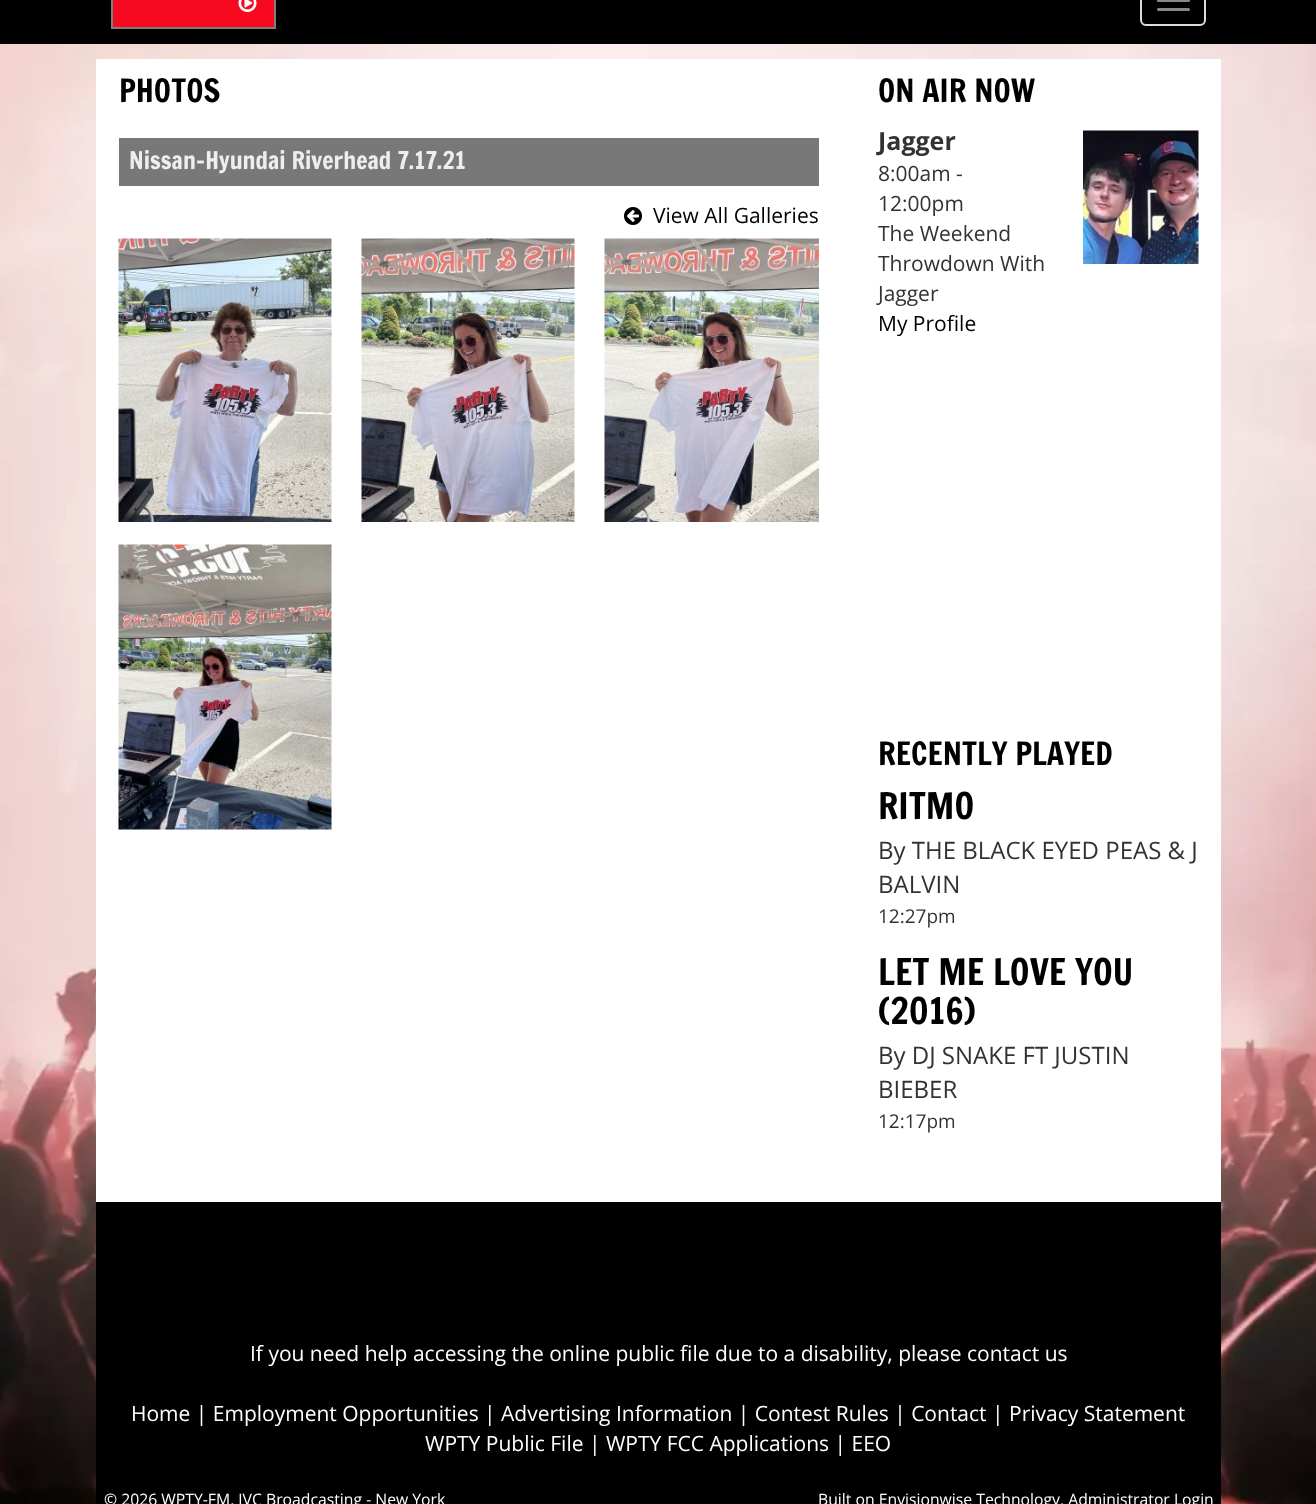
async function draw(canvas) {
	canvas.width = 1316;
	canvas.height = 1504;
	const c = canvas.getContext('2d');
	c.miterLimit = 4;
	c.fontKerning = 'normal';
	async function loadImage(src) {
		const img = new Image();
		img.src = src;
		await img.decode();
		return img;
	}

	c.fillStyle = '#fff';
	c.fillRect(0, 0, 1316, 1504);
	c.drawImage(await loadImage('img1.png'), 0, 44, 1316, 1460);
	c.fillStyle = '#000';
	c.fillRect(0, 0, 1316, 44);
	c.fillStyle = '#f7091f';
	c.beginPath();
	c.rect(112, -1, 163, 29);
	c.fill();
	c.strokeStyle = '#7b7e7e';
	c.lineWidth = 2;
	c.stroke();
	c.drawImage(await loadImage('img2.png'), 238, 0, 19, 12);
	c.beginPath();
	c.roundRect(1141, -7, 64, 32, 5);
	c.strokeStyle = '#ddd';
	c.stroke();
	c.fillStyle = '#888';
	c.beginPath();
	c.roundRect(1157, -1, 33, 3, 1.5);
	c.fill();
	c.beginPath();
	c.roundRect(1157, 8, 33, 3, 1.5);
	c.fill();
	c.fillStyle = '#fff';
	c.fillRect(96, 59, 1125, 1143);
	c.font = '31.5px Francois One';
	c.fillStyle = '#000';
	c.fillText('PHOTOS', 119, 102);
	c.fillStyle = '#787878';
	c.fillRect(119, 138, 700, 48);
	c.font = '24px Francois One';
	c.fillStyle = '#eee';
	c.fillText('Nissan-Hyundai Riverhead 7.17.21', 129, 169);
	c.drawImage(await loadImage('img3.png'), 624, 207, 18, 18);
	c.font = '21px Open Sans';
	c.fillStyle = '#000';
	c.fillText('View All Galleries', 653, 223);
	c.drawImage(await loadImage('img4.png'), 118, 238, 214, 284);
	c.drawImage(await loadImage('img5.png'), 361, 238, 214, 284);
	c.drawImage(await loadImage('img6.png'), 604, 238, 215, 284);
	c.drawImage(await loadImage('img7.png'), 118, 544, 214, 286);
	c.font = '31.5px Francois One';
	c.fillText('ON AIR NOW', 878, 102);
	c.font = 'bold 25px Open Sans';
	c.fillStyle = '#333';
	c.fillText('Jagger', 878, 150);
	c.font = '21px Open Sans';
	for (const [text, x, y] of [
		['8:00am -', 878, 181],
		['12:00pm', 878, 211],
		['The Weekend', 878, 241],
		['Throwdown With', 878, 271],
		['Jagger', 878, 301],
	]) {
		c.fillText(text, x, y);
	}
	c.fillStyle = '#000';
	c.fillText('My Profile', 878, 331);
	c.drawImage(await loadImage('img8.png'), 1083, 130, 116, 134);
	c.font = '31.5px Francois One';
	c.fillText('RECENTLY PLAYED', 878, 765);
	c.font = '36px Francois One';
	c.fillText('RITMO', 878, 819);
	c.font = '24px Open Sans';
	c.fillStyle = '#333';
	c.fillText('By THE BLACK EYED PEAS & J', 878, 859);
	c.fillText('BALVIN', 878, 893);
	c.font = '19px Open Sans';
	c.fillText('12:27pm', 878, 923);
	c.font = '36px Francois One';
	c.fillStyle = '#000';
	c.fillText('LET ME LOVE YOU', 878, 985);
	c.fillText('(2016)', 878, 1024);
	c.font = '24px Open Sans';
	c.fillStyle = '#333';
	c.fillText('By DJ SNAKE FT JUSTIN', 878, 1064);
	c.fillText('BIEBER', 878, 1098);
	c.font = '19px Open Sans';
	c.fillText('12:17pm', 878, 1128);
	c.fillStyle = '#000';
	c.fillRect(96, 1202, 1125, 302);
	c.font = '21px Open Sans';
	c.fillStyle = '#fff';
	for (const [text, x, y] of [
		['If you need help accessing the online public file due to a disability, please contact us', 250, 1361],
		['Home | Employment Opportunities | Advertising Information | Contest Rules | Contact | Privacy Statement', 131, 1421],
		['WPTY Public File | WPTY FCC Applications | EEO', 425, 1451],
	]) {
		c.fillText(text, x, y);
	}
	c.font = '15.75px Open Sans';
	c.fillText('© 2026 WPTY-FM, JVC Broadcasting - New York', 104, 1505);
	c.fillText('Built on Envisionwise Technology. Administrator Login', 818, 1505);
}

draw(document.querySelector('canvas'));
